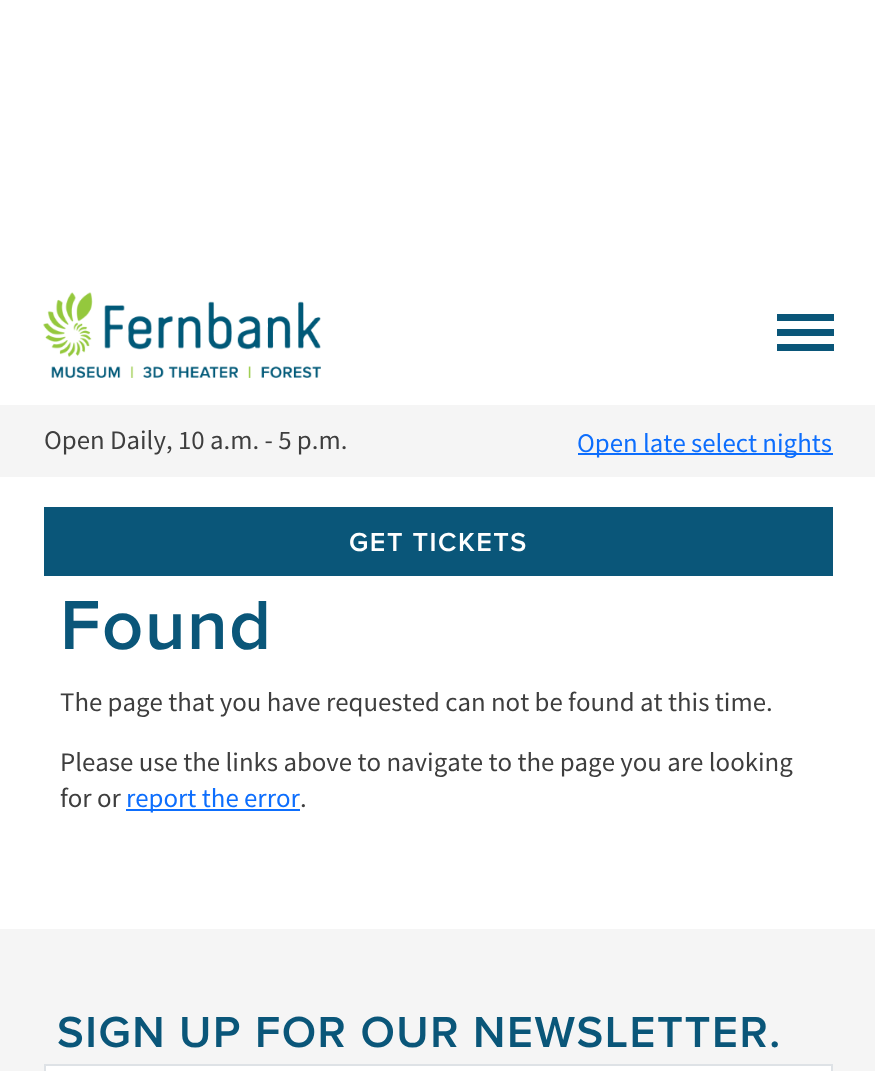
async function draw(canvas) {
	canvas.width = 875;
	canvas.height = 1071;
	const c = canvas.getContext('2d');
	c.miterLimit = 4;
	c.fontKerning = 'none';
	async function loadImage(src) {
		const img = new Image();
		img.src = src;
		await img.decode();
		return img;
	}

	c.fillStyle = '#fff';
	c.fillRect(0, 0, 875, 1071);
	c.drawImage(await loadImage('img1.png'), 43, 292, 278, 86);
	for (const [x, y, w, h, color] of [
		[777, 329, 57, 7, '#0a5679'],
		[777, 314, 57, 7, '#0a5679'],
		[777, 344, 57, 7, '#0a5679'],
		[0, 405, 875, 72, '#f5f5f5'],
	]) {
		c.fillStyle = color;
		c.fillRect(x, y, w, h);
	}
	c.font = '24px Noto Sans KR';
	c.fillStyle = '#3e3e3e';
	c.fillText('Open Daily, 10 a.m. - 5 p.m.', 44, 449);
	c.fillStyle = '#0d6efd';
	c.fillRect(578, 453, 255, 2);
	c.fillText('Open late select nights', 577, 452);
	c.fillStyle = '#0a5679';
	c.fillRect(44, 507, 789, 69);
	c.letterSpacing = '1.5px';
	c.font = '600 27px Proxima Nova';
	c.fillStyle = '#fff';
	c.fillText('GET TICKETS', 349, 551);
	c.font = '600 72px Proxima Nova';
	c.fillStyle = '#0a5679';
	c.fillText('Found', 60, 649);
	c.letterSpacing = '0px';
	c.font = '24px Noto Sans KR';
	c.fillStyle = '#3e3e3e';
	for (const [text, x, y] of [
		['The page that you have requested can not be found at', 60, 711],
		['this time.', 668, 711],
		['Please use the links above to navigate to the page you are looking', 60, 771],
		['for or', 60, 807],
	]) {
		c.fillText(text, x, y);
	}
	c.fillStyle = '#0d6efd';
	c.fillRect(126, 809, 174, 2);
	c.fillText('report the error', 126, 807);
	c.fillStyle = '#3e3e3e';
	c.fillText('.', 300, 807);
	c.fillStyle = '#f5f5f5';
	c.fillRect(0, 929, 875, 142);
	c.letterSpacing = '1.5px';
	c.font = '600 45px Proxima Nova';
	c.fillStyle = '#0a5679';
	c.fillText('SIGN UP FOR OUR NEWSLETTER.', 57, 1047);
	c.fillStyle = '#fff';
	c.beginPath();
	c.rect(45, 1065, 787, 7);
	c.fill();
	c.strokeStyle = '#dee2e6';
	c.lineWidth = 2;
	c.stroke();
}

draw(document.querySelector('canvas'));
